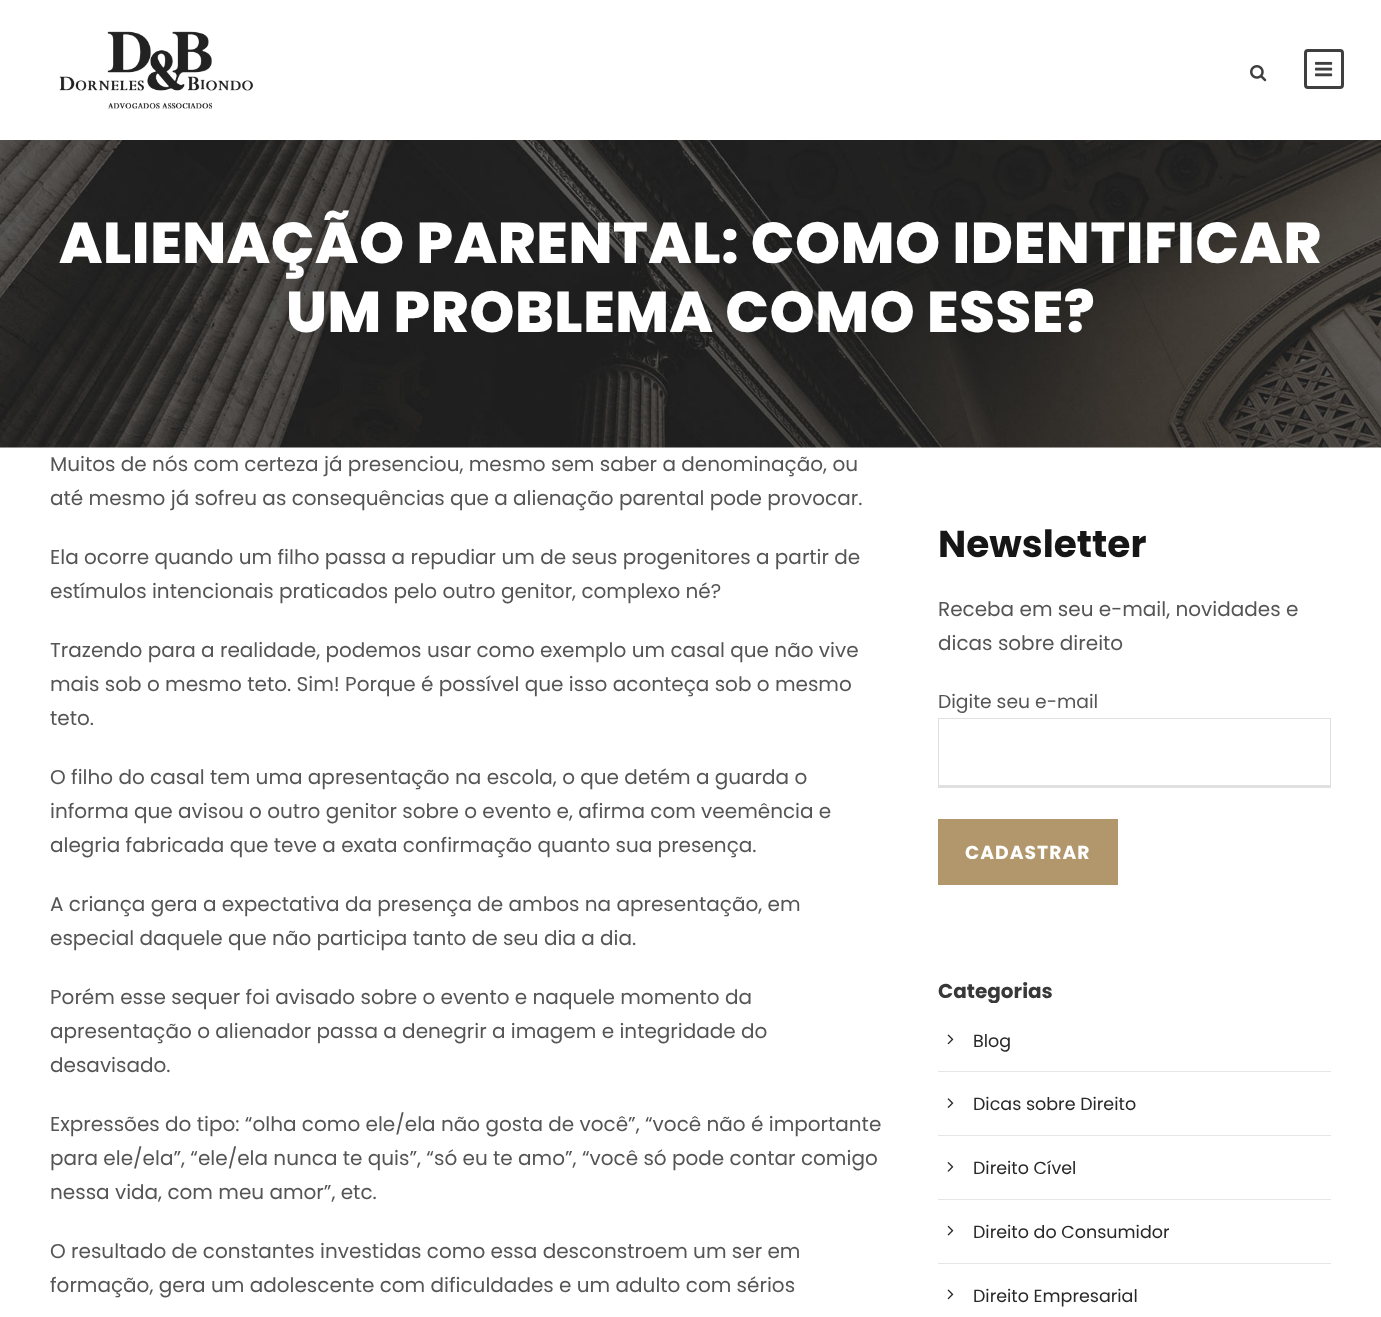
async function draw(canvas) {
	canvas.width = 1381;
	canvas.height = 1317;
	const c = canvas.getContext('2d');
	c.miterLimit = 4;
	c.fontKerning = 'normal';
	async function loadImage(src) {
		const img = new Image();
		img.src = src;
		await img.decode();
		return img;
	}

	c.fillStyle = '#fff';
	c.fillRect(0, 0, 1381, 1317);
	c.fillStyle = '#fafafa';
	c.fillRect(0, 447, 1381, 1);
	c.drawImage(await loadImage('img1.png'), 59, 31, 195, 78);
	c.drawImage(await loadImage('img2.png'), 1250, 65, 17, 17);
	c.beginPath();
	c.roundRect(1305.5, 50.5, 37, 37, 2.5);
	c.strokeStyle = '#3f3f3f';
	c.lineWidth = 3;
	c.stroke();
	c.drawImage(await loadImage('img3.png'), 1315, 61, 18, 16);
	c.drawImage(await loadImage('img4.png'), 0, 140, 1381, 308);
	c.letterSpacing = '0.6px';
	c.font = '800 57.5px Poppins';
	c.fillStyle = '#fff';
	c.fillText('ALIENAÇÃO PARENTAL: COMO IDENTIFICAR', 59, 263);
	c.fillText('UM PROBLEMA COMO ESSE?', 286, 332);
	c.letterSpacing = '0px';
	c.font = '20px Poppins';
	c.fillStyle = '#555';
	for (const [text, x, y] of [
		['Muitos de nós com certeza já presenciou, mesmo sem saber a denominação, ou', 50, 471],
		['até mesmo já sofreu as consequências que a alienação parental pode provocar.', 50, 505],
		['Ela ocorre quando um filho passa a repudiar um de seus progenitores a partir de', 50, 564],
		['estímulos intencionais praticados pelo outro genitor, complexo né?', 50, 598],
		['Trazendo para a realidade, podemos usar como exemplo um casal que não vive', 50, 657],
		['mais sob o mesmo teto. Sim! Porque é possível que isso aconteça sob o mesmo', 50, 691],
		['teto.', 50, 725],
		['O filho do casal tem uma apresentação na escola, o que detém a guarda o', 50, 784],
		['informa que avisou o outro genitor sobre o evento e, afirma com veemência e', 50, 818],
		['alegria fabricada que teve a exata confirmação quanto sua presença.', 50, 852],
		['A criança gera a expectativa da presença de ambos na apresentação, em', 50, 911],
		['especial daquele que não participa tanto de seu dia a dia.', 50, 945],
		['Porém esse sequer foi avisado sobre o evento e naquele momento da', 50, 1004],
		['apresentação o alienador passa a denegrir a imagem e integridade do', 50, 1038],
		['desavisado.', 50, 1072],
		['Expressões do tipo: “olha como ele/ela não gosta de você”, “você não é importante', 50, 1131],
		['para ele/ela”, “ele/ela nunca te quis”, “só eu te amo”, “você só pode contar comigo', 50, 1165],
		['nessa vida, com meu amor”, etc.', 50, 1199],
		['O resultado de constantes investidas como essa desconstroem um ser em', 50, 1258],
		['formação, gera um adolescente com dificuldades e um adulto com sérios', 50, 1292],
	]) {
		c.fillText(text, x, y);
	}
	c.font = 'bold 37.5px Poppins';
	c.fillStyle = '#161616';
	c.fillText('Newsletter', 938, 557);
	c.font = '20px Poppins';
	c.fillStyle = '#555';
	c.fillText('Receba em seu e-mail, novidades e', 938, 616);
	c.fillText('dicas sobre direito', 938, 650);
	c.font = '18.75px Poppins';
	c.fillText('Digite seu e-mail', 938, 708);
	for (const [x, y, w, h, color] of [
		[938, 718, 393, 1, '#e0e0e0'],
		[1330, 718, 1, 70, '#e0e0e0'],
		[938, 785, 393, 3, '#e0e0e0'],
		[938, 718, 1, 70, '#e0e0e0'],
		[938, 819, 180, 66, '#b1976b'],
	]) {
		c.fillStyle = color;
		c.fillRect(x, y, w, h);
	}
	c.letterSpacing = '1px';
	c.font = 'bold 18.75px Poppins';
	c.fillStyle = '#fff';
	c.fillText('CADASTRAR', 965, 859);
	c.save();
	c.beginPath();
	c.rect(938, 979, 393, 24);
	c.clip();
	c.letterSpacing = '0px';
	c.font = 'bold 20px Poppins';
	c.fillStyle = '#383838';
	c.fillText('Categorias', 938, 998);
	c.restore();
	c.fillStyle = '#e6e6e6';
	c.fillRect(938, 1071, 393, 1);
	c.drawImage(await loadImage('img5.png'), 947, 1034, 7, 11);
	c.letterSpacing = '0px';
	c.font = '17.5px Poppins';
	c.fillStyle = '#282828';
	c.fillText('Blog', 973, 1047);
	c.fillStyle = '#e6e6e6';
	c.fillRect(938, 1135, 393, 1);
	c.drawImage(await loadImage('img6.png'), 947, 1098, 7, 10);
	c.fillStyle = '#282828';
	c.fillText('Dicas sobre Direito', 973, 1110);
	c.fillStyle = '#e6e6e6';
	c.fillRect(938, 1199, 393, 1);
	c.drawImage(await loadImage('img7.png'), 947, 1162, 7, 10);
	c.fillStyle = '#282828';
	c.fillText('Direito Cível', 973, 1174);
	c.fillStyle = '#e6e6e6';
	c.fillRect(938, 1263, 393, 1);
	c.drawImage(await loadImage('img8.png'), 947, 1225, 7, 11);
	c.fillStyle = '#282828';
	c.fillText('Direito do Consumidor', 973, 1238);
	c.drawImage(await loadImage('img5.png'), 947, 1289, 7, 11);
	c.fillText('Direito Empresarial', 973, 1302);
}

draw(document.querySelector('canvas'));
